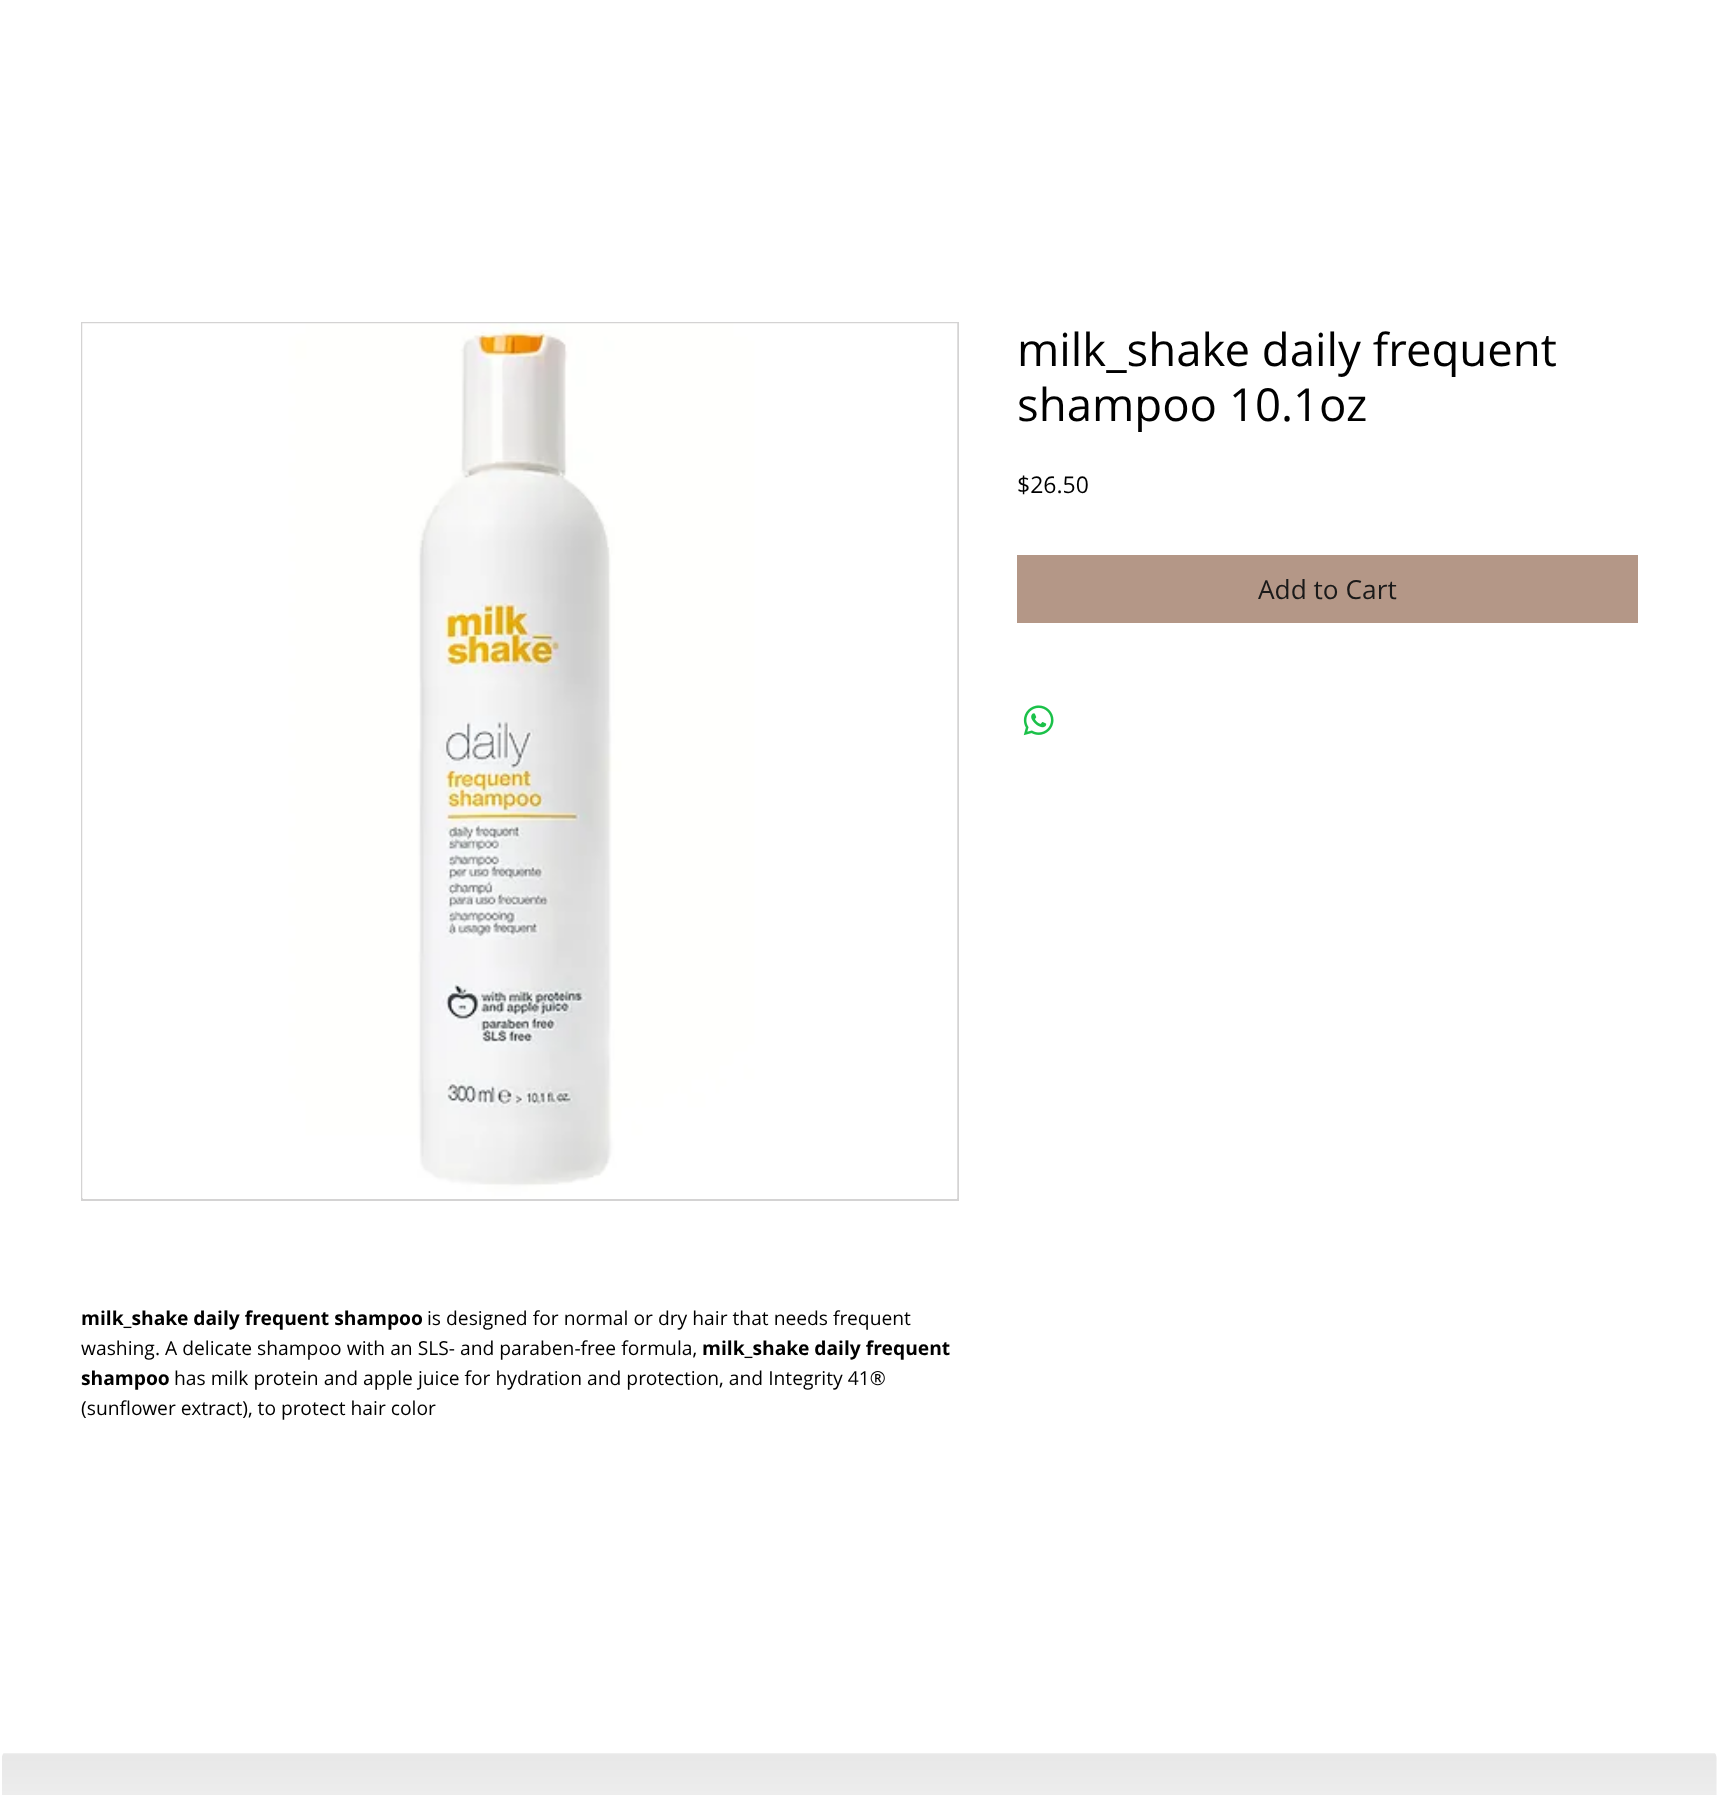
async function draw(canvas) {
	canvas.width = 1717;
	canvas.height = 1795;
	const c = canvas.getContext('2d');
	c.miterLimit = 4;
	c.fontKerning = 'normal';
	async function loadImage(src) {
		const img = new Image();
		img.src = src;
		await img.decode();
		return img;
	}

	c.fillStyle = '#fff';
	c.fillRect(0, 0, 1717, 1795);
	c.font = '45.5px Open Sans';
	c.fillStyle = '#000';
	c.fillText('milk_shake daily frequent', 1017, 366);
	c.fillText('shampoo 10.1oz', 1017, 421);
	c.font = '23px Open Sans';
	c.fillText('$26.50', 1017, 493);
	c.fillStyle = '#b49787';
	c.fillRect(1017, 555, 621, 68);
	c.font = '26.25px Open Sans';
	c.fillStyle = '#1a1a1a';
	c.fillText('Add to Cart', 1258, 599);
	c.drawImage(await loadImage('img1.png'), 1023, 705, 31, 31);
	c.strokeStyle = '#d4d3d3';
	c.lineWidth = 2;
	c.strokeRect(82, 323, 876, 877);
	c.drawImage(await loadImage('img2.png'), 82, 323, 876, 876);
	c.font = 'bold 19.25px Open Sans';
	c.fillStyle = '#000';
	c.fillText('milk_shake daily frequent shampoo', 81, 1325);
	c.font = '19.25px Open Sans';
	c.fillText('is designed for normal or dry hair that needs frequent', 427, 1325);
	c.fillText('washing. A delicate shampoo with an SLS- and paraben-free formula,', 81, 1355);
	c.font = 'bold 19.25px Open Sans';
	c.fillText('milk_shake daily frequent', 702, 1355);
	c.fillText('shampoo', 81, 1385);
	c.font = '19.25px Open Sans';
	c.fillText('has milk protein and apple juice for hydration and protection, and Integrity 41®', 174, 1385);
	c.fillText('(sunflower extract), to protect hair color', 81, 1415);
	c.drawImage(await loadImage('img3.png'), 2, 1753, 1715, 42);
}

draw(document.querySelector('canvas'));
